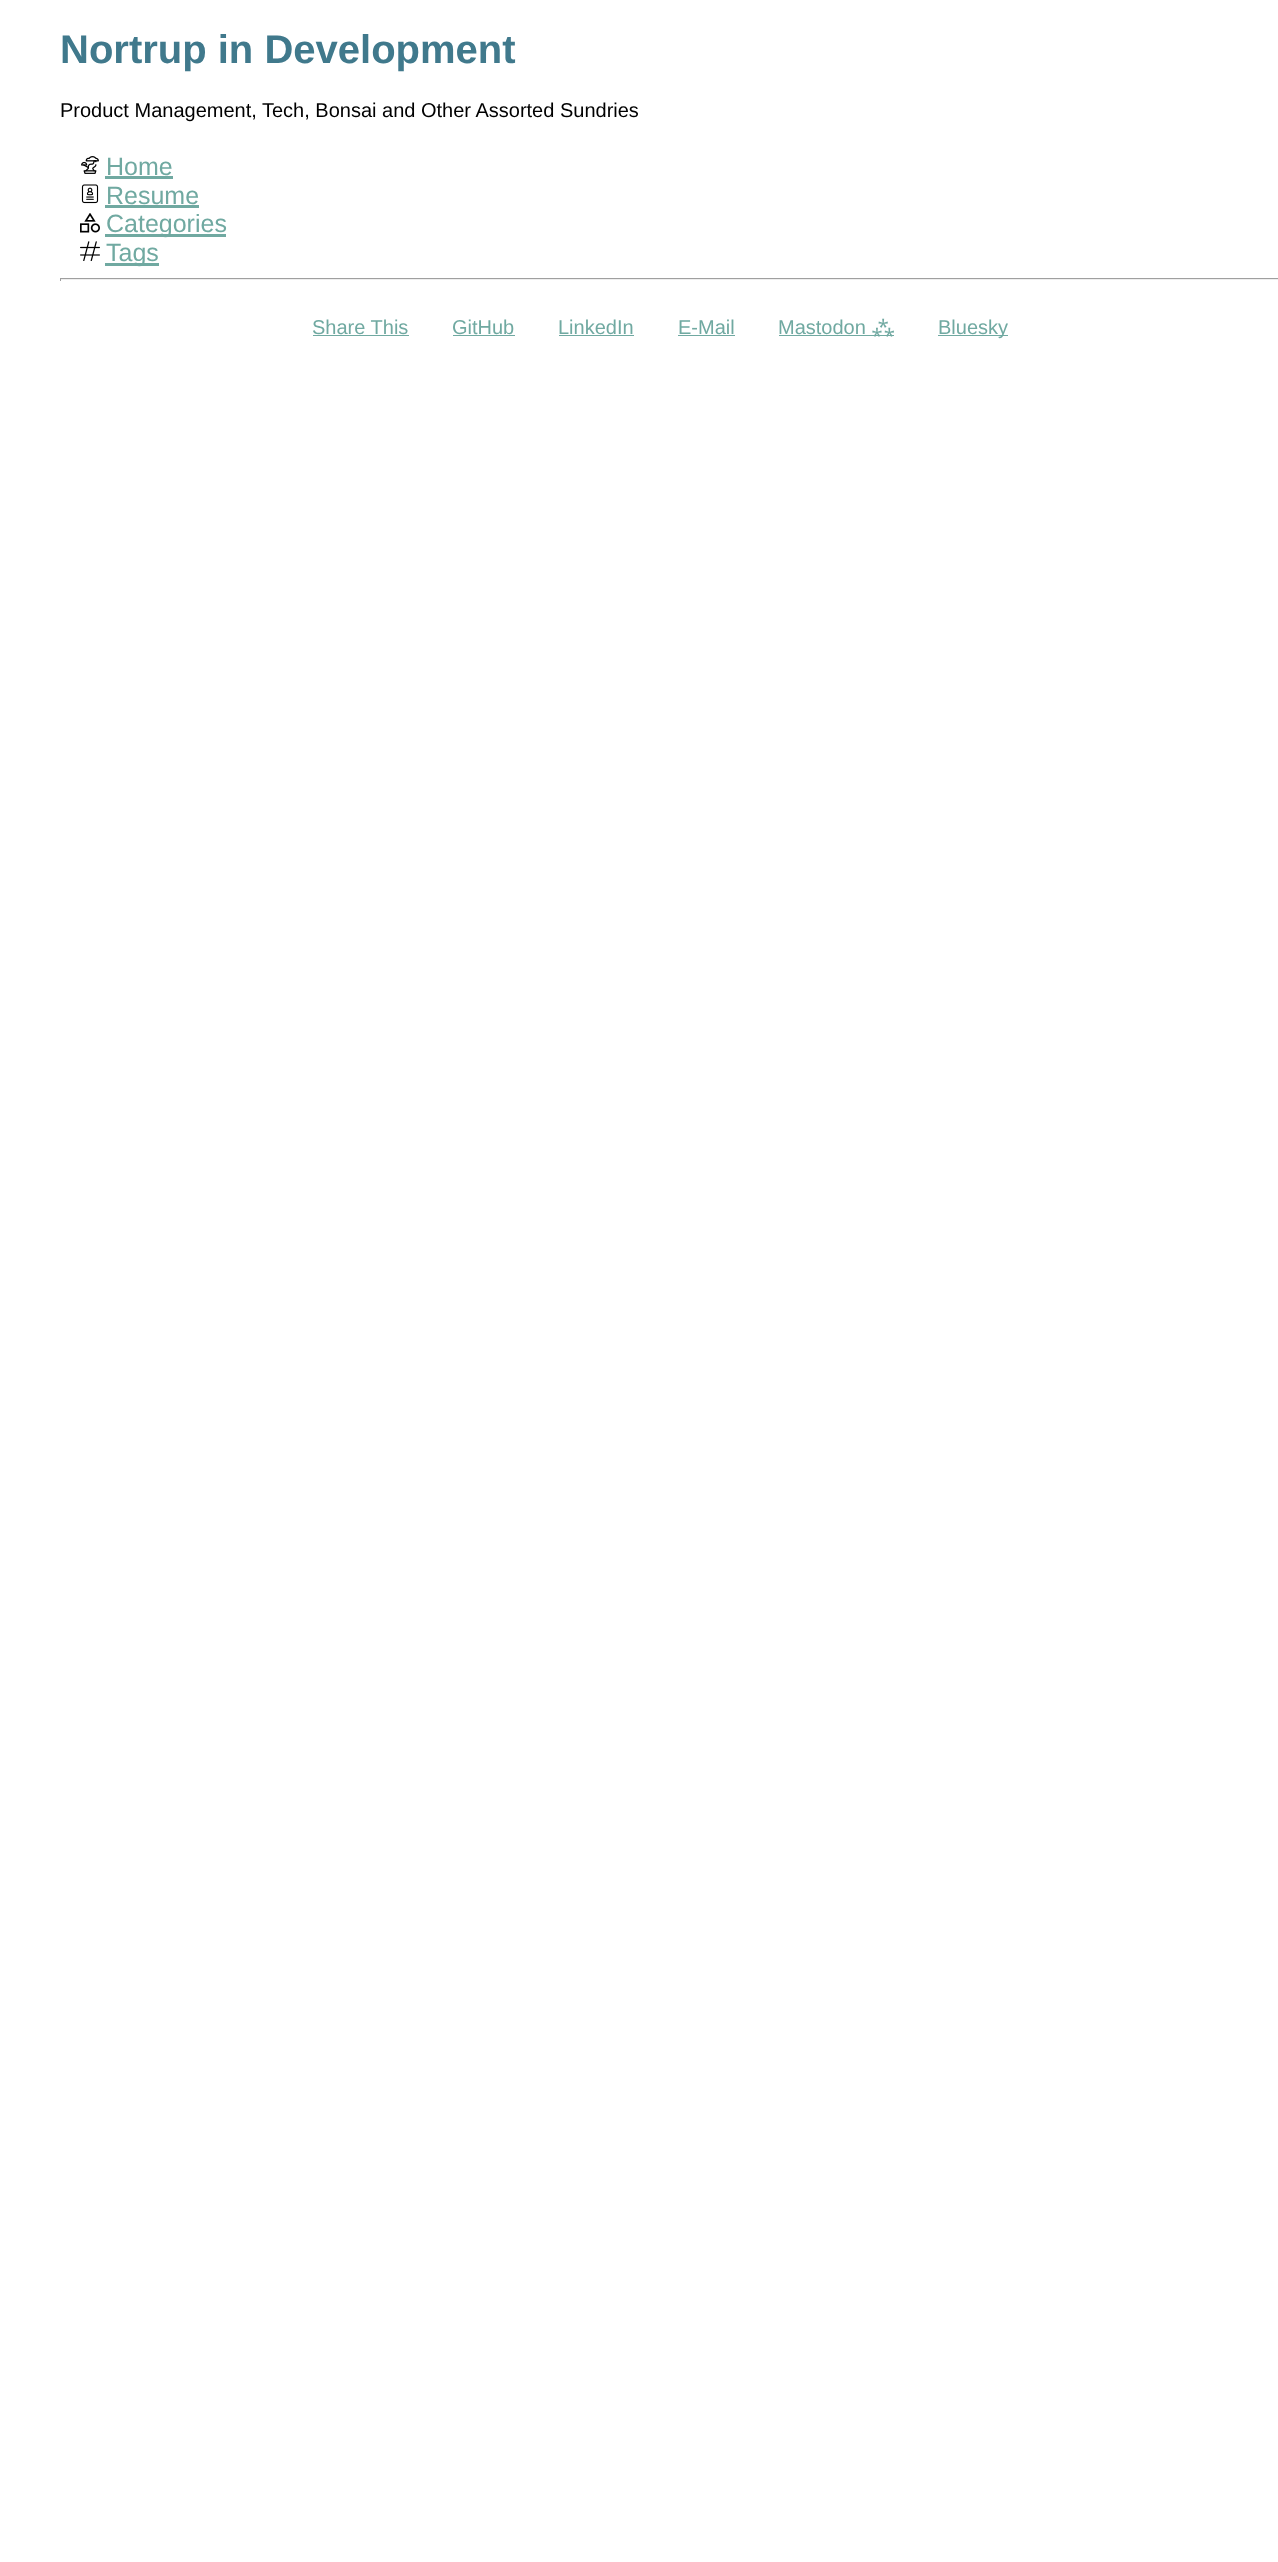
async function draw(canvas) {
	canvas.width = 1278;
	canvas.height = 2562;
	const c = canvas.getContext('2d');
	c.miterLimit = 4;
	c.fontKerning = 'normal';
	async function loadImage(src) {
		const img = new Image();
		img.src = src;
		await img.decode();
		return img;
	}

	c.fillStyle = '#fff';
	c.fillRect(0, 0, 1278, 2562);
	c.font = 'bold 40px Liberation Sans';
	c.fillStyle = '#40798c';
	c.fillText('Nortrup in Development', 60, 63);
	c.font = '20px Liberation Sans';
	c.fillStyle = '#000';
	c.fillText('Product Management, Tech, Bonsai and Other Assorted Sundries', 60, 117);
	c.drawImage(await loadImage('img1.png'), 81, 156, 18, 18);
	c.font = '25px Liberation Sans';
	c.fillStyle = '#70a9a1';
	c.fillText('Home', 106, 175);
	c.fillRect(105, 176, 68, 3);
	c.drawImage(await loadImage('img2.png'), 81, 184, 18, 20);
	c.fillText('Resume', 106, 204);
	c.fillRect(105, 205, 94, 3);
	c.drawImage(await loadImage('img3.png'), 80, 213, 20, 20);
	c.fillRect(105, 234, 121, 3);
	c.fillText('Categories', 106, 232);
	c.drawImage(await loadImage('img4.png'), 80, 241, 20, 20);
	c.fillRect(105, 263, 54, 3);
	c.fillText('Tags', 106, 261);
	for (const [x, y, w, h, color] of [
		[60, 278, 1218, 1, '#9f9f9f'],
		[60, 279, 1218, 1, '#eee'],
		[60, 278, 1, 3, '#9f9f9f'],
	]) {
		c.fillStyle = color;
		c.fillRect(x, y, w, h);
	}
	c.font = '20px Liberation Sans';
	c.fillStyle = '#70a9a1';
	c.fillText('Share This', 312, 334);
	c.fillRect(313, 335, 96, 1);
	c.fillText('GitHub', 452, 334);
	c.fillRect(453, 335, 62, 1);
	c.fillText('LinkedIn', 558, 334);
	c.fillRect(559, 335, 75, 1);
	c.fillText('E-Mail', 678, 334);
	c.fillRect(678, 335, 57, 1);
	c.fillText('Mastodon', 778, 334);
	c.fillRect(779, 335, 115, 1);
	c.font = '20px Noto Sans';
	c.fillText('⁂', 872, 334);
	c.fillRect(938, 335, 70, 1);
	c.font = '20px Liberation Sans';
	c.fillText('Bluesky', 938, 334);
}

draw(document.querySelector('canvas'));
